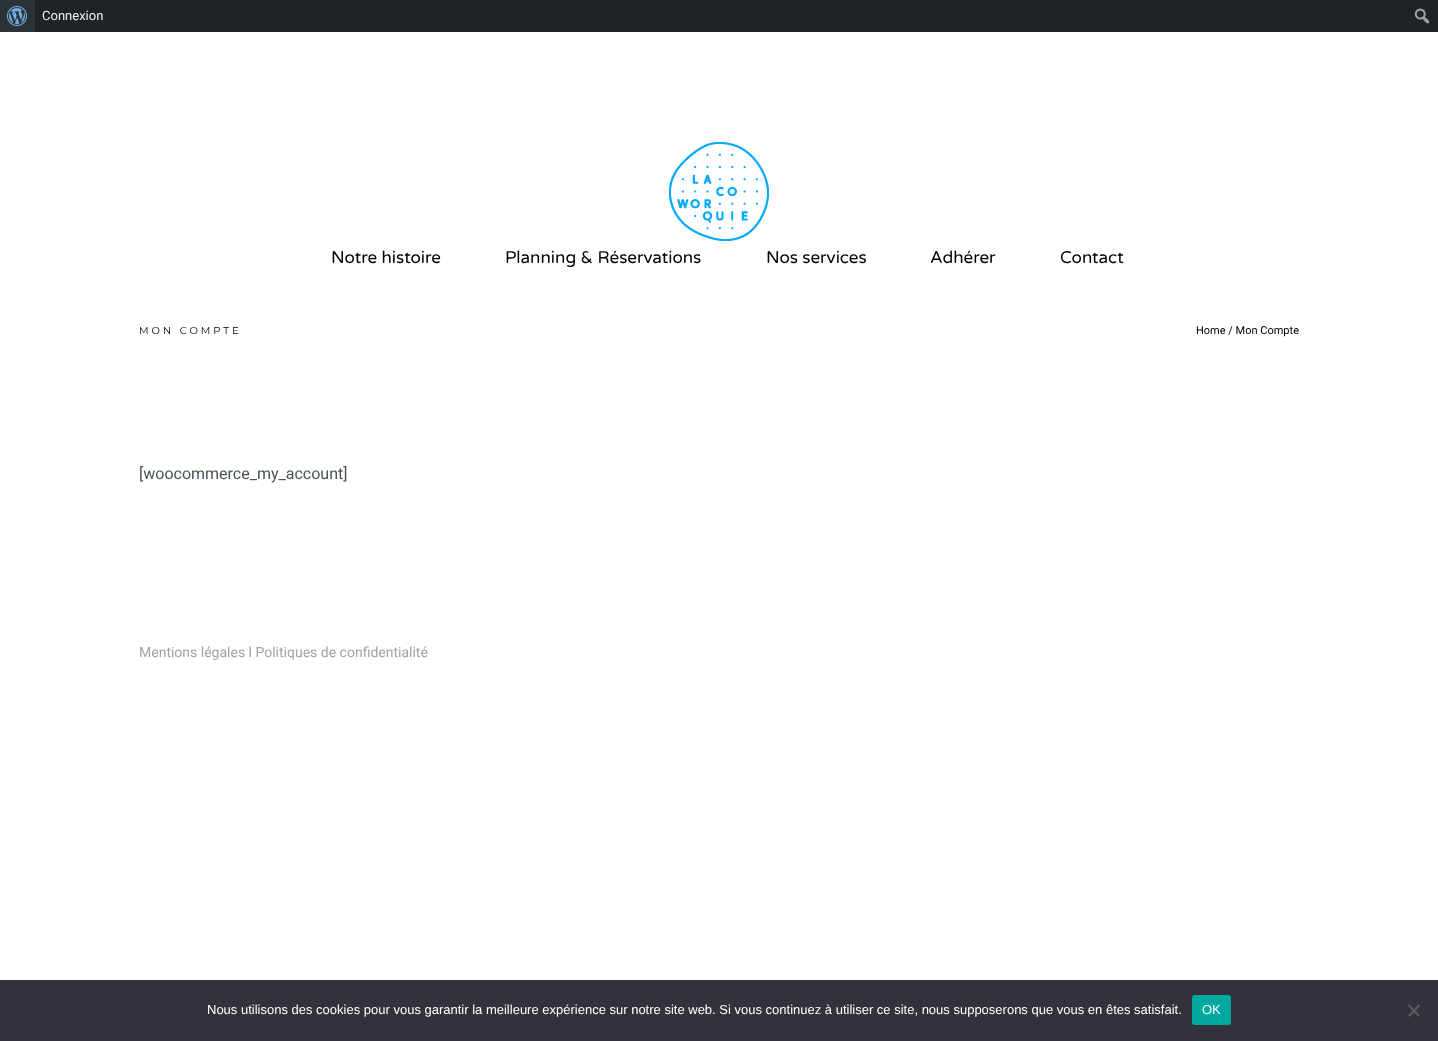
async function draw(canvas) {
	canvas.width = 1438;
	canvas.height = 1041;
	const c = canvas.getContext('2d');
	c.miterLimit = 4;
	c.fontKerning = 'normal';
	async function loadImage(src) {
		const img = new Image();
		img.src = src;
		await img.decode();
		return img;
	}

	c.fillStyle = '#fff';
	c.fillRect(0, 0, 1438, 1041);
	c.fillStyle = '#1d2327';
	c.fillRect(35, 0, 1403, 32);
	c.fillStyle = '#2c3338';
	c.fillRect(0, 0, 35, 32);
	c.drawImage(await loadImage('img1.png'), 7, 6, 20, 20);
	c.font = '13px Roboto';
	c.fillStyle = '#f0f0f1';
	c.fillText('Connexion', 42, 20);
	c.drawImage(await loadImage('img2.png'), 1414, 8, 16, 16);
	c.drawImage(await loadImage('img3.png'), 669, 142, 100, 99);
	c.font = '17px Varela Round';
	c.fillStyle = '#000';
	for (const [text, x, y] of [
		['Notre histoire', 331, 263],
		['Planning & Réservations', 505, 263],
		['Nos services', 766, 263],
		['Adhérer', 930, 263],
		['Contact', 1060, 263],
	]) {
		c.fillText(text, x, y);
	}
	c.letterSpacing = '3px';
	c.font = '10px Montserrat';
	c.fillText('MON COMPTE', 139, 334);
	c.letterSpacing = '0px';
	c.font = '11px Roboto';
	c.fillText('Home / Mon Compte', 1196, 334);
	c.font = '16px Roboto';
	c.fillStyle = '#47525c';
	c.fillText('[woocommerce_my_account]', 139, 479);
	c.font = '14px Roboto';
	c.fillStyle = '#a2a2a2';
	c.fillText('Mentions légales l Politiques de confidentialité', 139, 657);
	c.fillStyle = '#32323a';
	c.fillRect(0, 980, 1438, 61);
	c.font = '13px Liberation Sans';
	c.fillStyle = '#fff';
	c.fillText('Nous utilisons des cookies pour vous garantir la meilleure expérience sur notre site web. Si vous continuez à utiliser ce site, nous supposerons que vous en êtes satisfait.', 207, 1014);
	c.fillStyle = '#00a99d';
	c.beginPath();
	c.roundRect(1192, 995, 39, 30, 3);
	c.fill();
	c.fillStyle = '#fff';
	c.fillText('OK', 1202, 1014);
	c.fillStyle = '#59595d';
	c.beginPath();
	c.moveTo(1418.5, 1004.5);
	c.lineTo(1420, 1006);
	c.lineTo(1409.5, 1017);
	c.lineTo(1408, 1015.5);
	c.closePath();
	c.fill();
	c.beginPath();
	c.moveTo(1408, 1006);
	c.lineTo(1409.5, 1004.5);
	c.lineTo(1420, 1015.5);
	c.lineTo(1418.5, 1017);
	c.closePath();
	c.fill();
}

draw(document.querySelector('canvas'));
